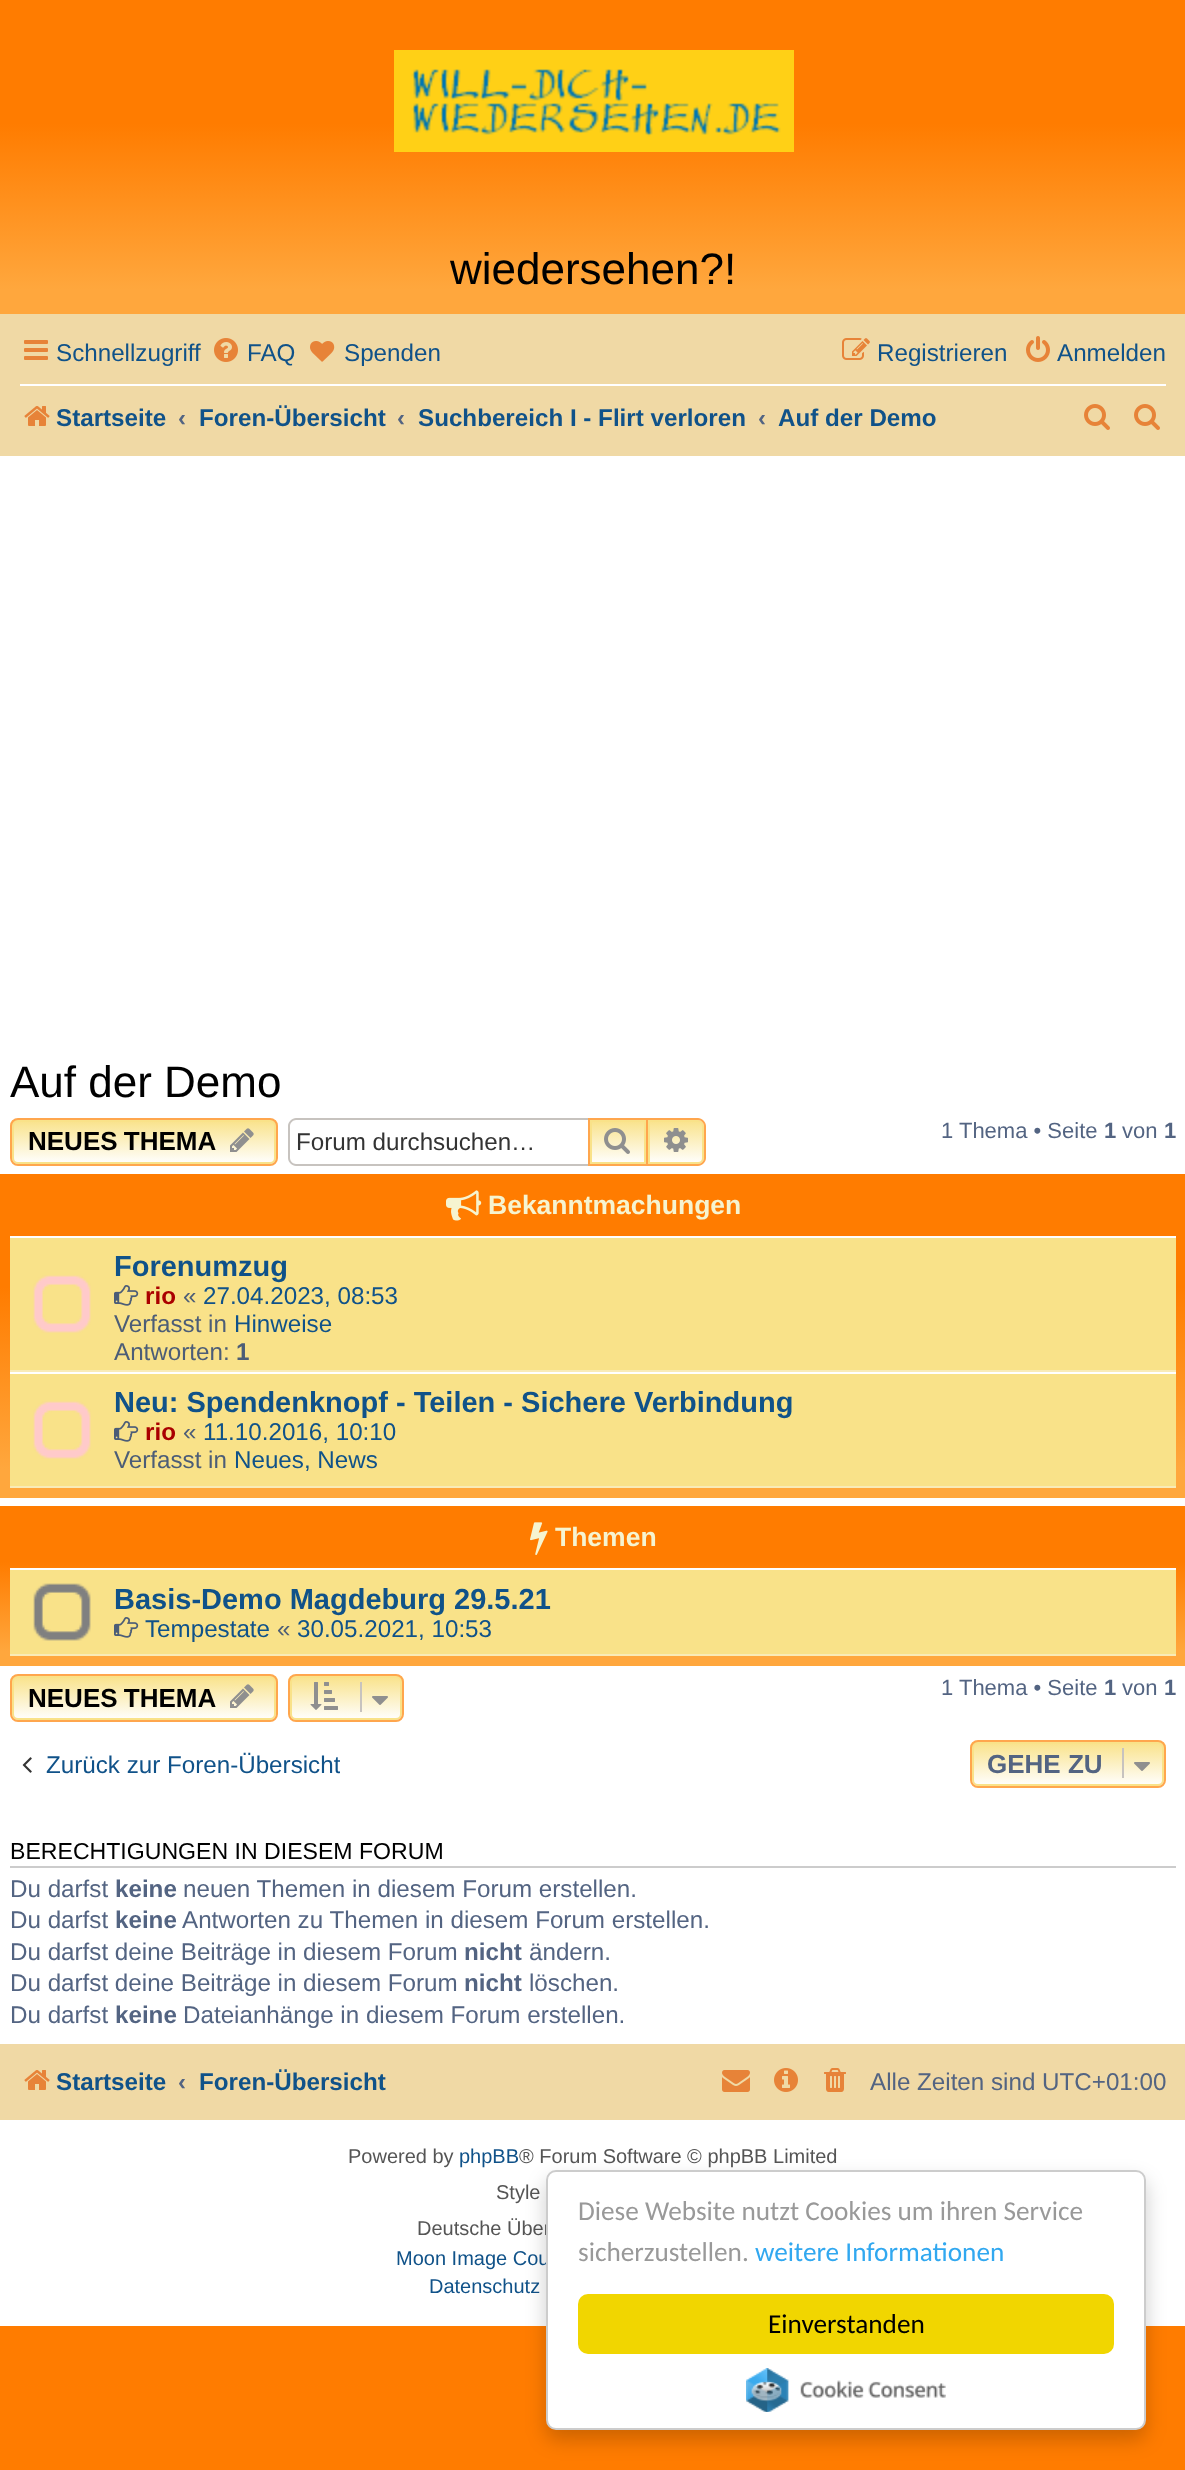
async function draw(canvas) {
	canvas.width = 1185;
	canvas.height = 2470;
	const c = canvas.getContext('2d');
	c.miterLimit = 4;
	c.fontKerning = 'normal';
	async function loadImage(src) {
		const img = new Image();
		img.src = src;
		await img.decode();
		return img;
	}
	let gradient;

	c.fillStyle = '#fff';
	c.fillRect(0, 0, 1185, 2470);
	gradient = c.createLinearGradient(593, 0, 593, 2326);
	gradient.addColorStop(0, '#ffb76b');
	gradient.addColorStop(0, '#ff7c00');
	gradient.addColorStop(0.35, '#ff7c00');
	gradient.addColorStop(0.91, '#ffa73d');
	gradient.addColorStop(1, '#ffa73d');
	gradient.addColorStop(1, '#ff7f04');
	gradient.addColorStop(1, '#ffa73d');
	c.fillStyle = gradient;
	c.fillRect(0, 0, 1185, 20);
	gradient = c.createLinearGradient(593, 2326, 593, 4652);
	gradient.addColorStop(0, '#ffb76b');
	gradient.addColorStop(0, '#ff7c00');
	gradient.addColorStop(0.35, '#ff7c00');
	gradient.addColorStop(0.91, '#ffa73d');
	gradient.addColorStop(1, '#ffa73d');
	gradient.addColorStop(1, '#ff7f04');
	gradient.addColorStop(1, '#ffa73d');
	c.fillStyle = gradient;
	c.fillRect(0, 2326, 1185, 144);
	gradient = c.createLinearGradient(593, 20, 593, 316);
	gradient.addColorStop(0, '#ffb76b');
	gradient.addColorStop(0, '#ff7c00');
	gradient.addColorStop(0.35, '#ff7c00');
	gradient.addColorStop(0.91, '#ffa73d');
	gradient.addColorStop(1, '#ffa73d');
	gradient.addColorStop(1, '#ff7f04');
	gradient.addColorStop(1, '#ffa73d');
	c.fillStyle = gradient;
	c.fillRect(0, 20, 1185, 294);
	c.drawImage(await loadImage('img1.png'), 394, 50, 400, 102);
	c.font = '44px Liberation Sans';
	c.fillStyle = '#000';
	c.fillText('wiedersehen?!', 450, 284);
	c.fillStyle = '#f0d9a5';
	c.fillRect(0, 314, 1185, 142);
	c.drawImage(await loadImage('img2.png'), 24, 340, 24, 20);
	c.font = '24.2px Liberation Sans';
	c.fillStyle = '#105289';
	c.fillText('Schnellzugriff', 56, 361);
	c.drawImage(await loadImage('img3.png'), 214, 338, 24, 24);
	c.fillText('FAQ', 247, 361);
	c.drawImage(await loadImage('img4.png'), 310, 341, 25, 21);
	c.fillText('Spenden', 344, 361);
	c.drawImage(await loadImage('img5.png'), 842, 338, 28, 22);
	c.fillText('Registrieren', 877, 361);
	c.drawImage(await loadImage('img6.png'), 1026, 336, 24, 26);
	c.fillText('Anmelden', 1057, 361);
	c.fillStyle = '#fff';
	c.fillRect(20, 384, 1146, 2);
	c.drawImage(await loadImage('img7.png'), 24, 406, 26, 20);
	c.font = 'bold 24.2px Liberation Sans';
	c.fillStyle = '#105289';
	c.fillText('Startseite', 56, 426);
	c.fillStyle = '#536482';
	c.fillText('‹', 178, 426);
	c.fillStyle = '#105289';
	c.fillText('Foren-Übersicht', 199, 426);
	c.fillStyle = '#536482';
	c.fillText('‹', 397, 426);
	c.fillStyle = '#105289';
	c.fillText('Suchbereich I - Flirt verloren', 418, 426);
	c.fillStyle = '#536482';
	c.fillText('‹', 758, 426);
	c.fillStyle = '#105289';
	c.fillText('Auf der Demo', 778, 426);
	c.drawImage(await loadImage('img8.png'), 1084, 404, 26, 26);
	c.drawImage(await loadImage('img8.png'), 1134, 404, 26, 26);
	c.font = '44px Liberation Sans';
	c.fillStyle = '#000';
	c.fillText('Auf der Demo', 10, 1097);
	c.save();
	c.beginPath();
	c.roundRect(10, 1118, 268, 48, 8);
	c.clip();
	gradient = c.createLinearGradient(144, 1120, 144, 1164);
	gradient.addColorStop(0, '#f9e289');
	gradient.addColorStop(1, '#fff');
	c.fillStyle = gradient;
	c.fillRect(10, 1120, 268, 44);
	c.restore();
	c.beginPath();
	c.roundRect(13, 1121, 262, 42, 5);
	c.strokeStyle = '#f9e289';
	c.lineWidth = 2;
	c.stroke();
	c.beginPath();
	c.roundRect(11, 1119, 266, 46, 7);
	c.strokeStyle = '#ffa64d';
	c.stroke();
	c.wordSpacing = '-1px';
	c.font = 'bold 26px Liberation Sans';
	c.fillText('NEUES THEMA', 28, 1150);
	c.drawImage(await loadImage('img9.png'), 230, 1128, 24, 24);
	c.fillStyle = '#c7c3bf';
	c.beginPath();
	c.moveTo(296, 1118);
	c.lineTo(588, 1118);
	c.lineTo(588, 1166);
	c.lineTo(296, 1166);
	c.bezierCurveTo(292, 1166, 288, 1162, 288, 1158);
	c.lineTo(288, 1126);
	c.bezierCurveTo(288, 1122, 292, 1118, 296, 1118);
	c.closePath();
	c.moveTo(296, 1120);
	c.lineTo(588, 1120);
	c.lineTo(588, 1164);
	c.lineTo(296, 1164);
	c.bezierCurveTo(293, 1164, 290, 1161, 290, 1158);
	c.lineTo(290, 1126);
	c.bezierCurveTo(290, 1123, 293, 1120, 296, 1120);
	c.closePath();
	c.fill('evenodd');
	c.wordSpacing = '0px';
	c.font = '24.2px Liberation Sans';
	c.fillStyle = '#333';
	c.fillText('Forum durchsuchen…', 296, 1150);
	gradient = c.createLinearGradient(618, 1120, 618, 1164);
	gradient.addColorStop(0, '#f9e289');
	gradient.addColorStop(1, '#fff');
	c.fillStyle = gradient;
	c.fillRect(592, 1122, 52, 40);
	c.strokeStyle = '#f9e289';
	c.strokeRect(591, 1121, 54, 42);
	c.strokeStyle = '#ffa64d';
	c.strokeRect(589, 1119, 58, 46);
	c.drawImage(await loadImage('img10.png'), 604, 1128, 26, 26);
	gradient = c.createLinearGradient(676, 1120, 676, 1164);
	gradient.addColorStop(0, '#f9e289');
	gradient.addColorStop(1, '#fff');
	c.fillStyle = gradient;
	c.beginPath();
	c.roundRect(649, 1121, 54, 42, [0, 5, 5, 0]);
	c.fill();
	c.strokeStyle = '#f9e289';
	c.stroke();
	c.fillStyle = '#ffa64d';
	c.beginPath();
	c.moveTo(648, 1118);
	c.lineTo(698, 1118);
	c.bezierCurveTo(702, 1118, 706, 1122, 706, 1126);
	c.lineTo(706, 1158);
	c.bezierCurveTo(706, 1162, 702, 1166, 698, 1166);
	c.lineTo(648, 1166);
	c.closePath();
	c.moveTo(648, 1120);
	c.lineTo(698, 1120);
	c.bezierCurveTo(701, 1120, 704, 1123, 704, 1126);
	c.lineTo(704, 1158);
	c.bezierCurveTo(704, 1161, 701, 1164, 698, 1164);
	c.lineTo(648, 1164);
	c.closePath();
	c.fill('evenodd');
	c.drawImage(await loadImage('img11.png'), 664, 1128, 24, 24);
	c.font = '22px Liberation Sans';
	c.fillStyle = '#536482';
	c.fillText('1 Thema • Seite', 941, 1138);
	c.font = 'bold 22px Liberation Sans';
	c.fillText('1', 1104, 1138);
	c.font = '22px Liberation Sans';
	c.fillText('von', 1122, 1138);
	c.font = 'bold 22px Liberation Sans';
	c.fillText('1', 1164, 1138);
	gradient = c.createLinearGradient(593, 1174, 593, 1498);
	gradient.addColorStop(0, '#ffb76b');
	gradient.addColorStop(0, '#ff7c00');
	gradient.addColorStop(0.35, '#ff7c00');
	gradient.addColorStop(0.91, '#ffa73d');
	gradient.addColorStop(1, '#ffa73d');
	gradient.addColorStop(1, '#ff7f04');
	gradient.addColorStop(1, '#ffa73d');
	c.fillStyle = gradient;
	c.fillRect(0, 1174, 1185, 324);
	c.drawImage(await loadImage('img12.png'), 446, 1190, 36, 31);
	c.font = 'bold 26.5px Liberation Sans';
	c.fillStyle = '#f6f4d0';
	c.fillText('Bekanntmachungen', 488, 1214);
	for (const [x, y, w, h, color] of [
		[10, 1238, 1166, 132, '#f9e289'],
		[10, 1236, 1166, 2, '#fff'],
		[10, 1370, 1166, 2, '#f9ebb7'],
	]) {
		c.fillStyle = color;
		c.fillRect(x, y, w, h);
	}
	c.drawImage(await loadImage('img13.png'), 33, 1275, 58, 58);
	c.font = 'bold 29px Liberation Sans';
	c.fillStyle = '#105289';
	c.fillText('Forenumzug', 114, 1276);
	c.drawImage(await loadImage('img14.png'), 114, 1285, 25, 21);
	c.font = 'bold 24.2px Liberation Sans';
	c.fillStyle = '#a00';
	c.fillText('rio', 145, 1304);
	c.font = '24.2px Liberation Sans';
	c.fillStyle = '#4c5d77';
	c.fillText('«', 183, 1304);
	c.fillStyle = '#105289';
	c.fillText('27.04.2023, 08:53', 203, 1304);
	c.fillStyle = '#4c5d77';
	c.fillText('Verfasst in', 114, 1332);
	c.fillStyle = '#105289';
	c.fillText('Hinweise', 234, 1332);
	c.fillStyle = '#4c5d77';
	c.fillText('Antworten:', 114, 1360);
	c.font = 'bold 24.2px Liberation Sans';
	c.fillText('1', 236, 1360);
	for (const [x, y, w, h, color] of [
		[10, 1374, 1166, 112, '#f9e289'],
		[10, 1372, 1166, 2, '#fff'],
		[10, 1486, 1166, 2, '#f9ebb7'],
	]) {
		c.fillStyle = color;
		c.fillRect(x, y, w, h);
	}
	c.drawImage(await loadImage('img13.png'), 33, 1401, 58, 58);
	c.font = 'bold 29px Liberation Sans';
	c.fillStyle = '#105289';
	c.fillText('Neu: Spendenknopf - Teilen - Sichere Verbindung', 114, 1412);
	c.drawImage(await loadImage('img14.png'), 114, 1421, 25, 21);
	c.font = 'bold 24.2px Liberation Sans';
	c.fillStyle = '#a00';
	c.fillText('rio', 145, 1440);
	c.font = '24.2px Liberation Sans';
	c.fillStyle = '#4c5d77';
	c.fillText('«', 183, 1440);
	c.fillStyle = '#105289';
	c.fillText('11.10.2016, 10:10', 203, 1440);
	c.fillStyle = '#4c5d77';
	c.fillText('Verfasst in', 114, 1468);
	c.fillStyle = '#105289';
	c.fillText('Neues, News', 234, 1468);
	gradient = c.createLinearGradient(593, 1506, 593, 1666);
	gradient.addColorStop(0, '#ffb76b');
	gradient.addColorStop(0, '#ff7c00');
	gradient.addColorStop(0.35, '#ff7c00');
	gradient.addColorStop(0.91, '#ffa73d');
	gradient.addColorStop(1, '#ffa73d');
	gradient.addColorStop(1, '#ff7f04');
	gradient.addColorStop(1, '#ffa73d');
	c.fillStyle = gradient;
	c.fillRect(0, 1506, 1185, 160);
	c.drawImage(await loadImage('img15.png'), 530, 1522, 18, 33);
	c.font = 'bold 26.5px Liberation Sans';
	c.fillStyle = '#f6f4d0';
	c.fillText('Themen', 555, 1546);
	for (const [x, y, w, h, color] of [
		[10, 1570, 1166, 84, '#f9e289'],
		[10, 1568, 1166, 2, '#fff'],
		[10, 1654, 1166, 2, '#f9ebb7'],
	]) {
		c.fillStyle = color;
		c.fillRect(x, y, w, h);
	}
	c.drawImage(await loadImage('img16.png'), 33, 1583, 58, 58);
	c.font = 'bold 29px Liberation Sans';
	c.fillStyle = '#105289';
	c.fillText('Basis-Demo Magdeburg 29.5.21', 114, 1609);
	c.drawImage(await loadImage('img14.png'), 114, 1617, 25, 21);
	c.font = '24.2px Liberation Sans';
	c.fillText('Tempestate', 145, 1637);
	c.fillStyle = '#4c5d77';
	c.fillText('«', 277, 1637);
	c.fillStyle = '#105289';
	c.fillText('30.05.2021, 10:53', 297, 1637);
	c.save();
	c.beginPath();
	c.roundRect(10, 1674, 268, 48, 8);
	c.clip();
	gradient = c.createLinearGradient(144, 1676, 144, 1720);
	gradient.addColorStop(0, '#f9e289');
	gradient.addColorStop(1, '#fff');
	c.fillStyle = gradient;
	c.fillRect(10, 1676, 268, 44);
	c.restore();
	c.beginPath();
	c.roundRect(13, 1677, 262, 42, 5);
	c.stroke();
	c.beginPath();
	c.roundRect(11, 1675, 266, 46, 7);
	c.strokeStyle = '#ffa64d';
	c.stroke();
	c.wordSpacing = '-1px';
	c.font = 'bold 26px Liberation Sans';
	c.fillStyle = '#000';
	c.fillText('NEUES THEMA', 28, 1707);
	c.drawImage(await loadImage('img9.png'), 230, 1684, 24, 24);
	c.save();
	c.beginPath();
	c.roundRect(288, 1674, 116, 48, 8);
	c.clip();
	gradient = c.createLinearGradient(346, 1676, 346, 1720);
	gradient.addColorStop(0, '#f9e289');
	gradient.addColorStop(1, '#fff');
	c.fillStyle = gradient;
	c.fillRect(288, 1676, 116, 44);
	c.restore();
	c.beginPath();
	c.roundRect(291, 1677, 110, 42, 5);
	c.strokeStyle = '#f9e289';
	c.stroke();
	c.beginPath();
	c.roundRect(289, 1675, 114, 46, 7);
	c.strokeStyle = '#ffa64d';
	c.stroke();
	c.drawImage(await loadImage('img17.png'), 310, 1682, 28, 28);
	c.fillStyle = '#c7c3bf';
	c.fillRect(360, 1682, 2, 30);
	c.drawImage(await loadImage('img18.png'), 372, 1696, 16, 9);
	c.wordSpacing = '0px';
	c.font = '22px Liberation Sans';
	c.fillStyle = '#536482';
	c.fillText('1 Thema • Seite', 941, 1695);
	c.font = 'bold 22px Liberation Sans';
	c.fillText('1', 1104, 1695);
	c.font = '22px Liberation Sans';
	c.fillText('von', 1122, 1695);
	c.font = 'bold 22px Liberation Sans';
	c.fillText('1', 1164, 1695);
	c.drawImage(await loadImage('img19.png'), 22, 1757, 10, 16);
	c.save();
	c.beginPath();
	c.rect(10, 1750, 330, 32);
	c.clip();
	c.font = '24.2px Liberation Sans';
	c.fillStyle = '#105289';
	c.fillText('Zurück zur Foren-Übersicht', 46, 1773);
	c.restore();
	c.save();
	c.beginPath();
	c.roundRect(970, 1740, 196, 48, 8);
	c.clip();
	gradient = c.createLinearGradient(1068, 1742, 1068, 1786);
	gradient.addColorStop(0, '#f9e289');
	gradient.addColorStop(1, '#fff');
	c.fillStyle = gradient;
	c.fillRect(970, 1742, 196, 44);
	c.restore();
	c.beginPath();
	c.roundRect(973, 1743, 190, 42, 5);
	c.strokeStyle = '#f9e289';
	c.stroke();
	c.beginPath();
	c.roundRect(971, 1741, 194, 46, 7);
	c.strokeStyle = '#ffa64d';
	c.stroke();
	c.font = 'bold 26px Liberation Sans';
	c.fillText('GEHE ZU', 987, 1773);
	c.fillStyle = '#c7c3bf';
	c.fillRect(1122, 1748, 2, 30);
	c.drawImage(await loadImage('img18.png'), 1134, 1762, 16, 9);
	c.fillStyle = '#ccc';
	c.fillRect(10, 1866, 1166, 2);
	c.font = '23.1px Liberation Sans';
	c.fillStyle = '#000';
	c.fillText('BERECHTIGUNGEN IN DIESEM FORUM', 10, 1859);
	c.font = '24.2px Liberation Sans';
	c.fillStyle = '#536482';
	c.fillText('Du darfst', 10, 1897);
	c.font = 'bold 24.2px Liberation Sans';
	c.fillText('keine', 115, 1897);
	c.font = '24.2px Liberation Sans';
	c.fillText('neuen Themen in diesem Forum erstellen.', 183, 1897);
	c.fillText('Du darfst', 10, 1928);
	c.font = 'bold 24.2px Liberation Sans';
	c.fillText('keine', 115, 1928);
	c.font = '24.2px Liberation Sans';
	c.fillText('Antworten zu Themen in diesem Forum erstellen.', 182, 1928);
	c.fillText('Du darfst deine Beiträge in diesem Forum', 10, 1960);
	c.font = 'bold 24.2px Liberation Sans';
	c.fillText('nicht', 464, 1960);
	c.font = '24.2px Liberation Sans';
	c.fillText('ändern.', 529, 1960);
	c.fillText('Du darfst deine Beiträge in diesem Forum', 10, 1991);
	c.font = 'bold 24.2px Liberation Sans';
	c.fillText('nicht', 464, 1991);
	c.font = '24.2px Liberation Sans';
	c.fillText('löschen.', 529, 1991);
	c.fillText('Du darfst', 10, 2023);
	c.font = 'bold 24.2px Liberation Sans';
	c.fillText('keine', 115, 2023);
	c.font = '24.2px Liberation Sans';
	c.fillText('Dateianhänge in diesem Forum erstellen.', 183, 2023);
	c.fillStyle = '#f0d9a5';
	c.fillRect(0, 2044, 1185, 76);
	c.drawImage(await loadImage('img7.png'), 24, 2070, 26, 20);
	c.font = 'bold 24.2px Liberation Sans';
	c.fillStyle = '#105289';
	c.fillText('Startseite', 56, 2090);
	c.fillStyle = '#536482';
	c.fillText('‹', 178, 2090);
	c.fillStyle = '#105289';
	c.fillText('Foren-Übersicht', 199, 2090);
	c.drawImage(await loadImage('img20.png'), 722, 2070, 28, 22);
	c.drawImage(await loadImage('img21.png'), 774, 2068, 24, 24);
	c.drawImage(await loadImage('img22.png'), 824, 2068, 22, 24);
	c.font = '24.2px Liberation Sans';
	c.fillStyle = '#536482';
	c.fillText('Alle Zeiten sind UTC+01:00', 870, 2090);
	c.font = '20px Liberation Sans';
	c.fillStyle = '#555';
	c.fillText('Powered by', 348, 2163);
	c.fillStyle = '#105289';
	c.fillText('phpBB', 459, 2163);
	c.fillStyle = '#555';
	for (const [text, x, y] of [
		['® Forum Software © phpBB Limited', 519, 2163],
		['Style', 496, 2199],
		['Deutsche Über', 417, 2235],
	]) {
		c.fillText(text, x, y);
	}
	c.fillStyle = '#105289';
	c.fillText('Moon Image Cou', 396, 2265);
	c.fillText('Datenschutz', 429, 2293);
	c.fillStyle = '#00000033';
	c.filter = 'blur(10px)';
	c.beginPath();
	c.roundRect(546, 2180, 600, 260, 10);
	c.fill();
	c.filter = 'none';
	c.fillStyle = '#fff';
	c.beginPath();
	c.roundRect(547, 2171, 598, 258, 9);
	c.fill();
	c.strokeStyle = '#ccc';
	c.stroke();
	c.font = '27.25px Carlito';
	c.fillStyle = '#999';
	c.fillText('Diese Website nutzt Cookies um ihren Service', 578, 2220);
	c.fillText('sicherzustellen.', 578, 2261);
	c.fillStyle = '#31a8f0';
	c.fillText('weitere Informationen', 755, 2261);
	c.fillStyle = '#f1d600';
	c.beginPath();
	c.roundRect(578, 2294, 536, 60, 10);
	c.fill();
	c.fillStyle = '#000';
	c.fillText('Einverstanden', 768, 2333);
	c.drawImage(await loadImage('img23.png'), 746, 2368, 200, 44);
}

draw(document.querySelector('canvas'));
